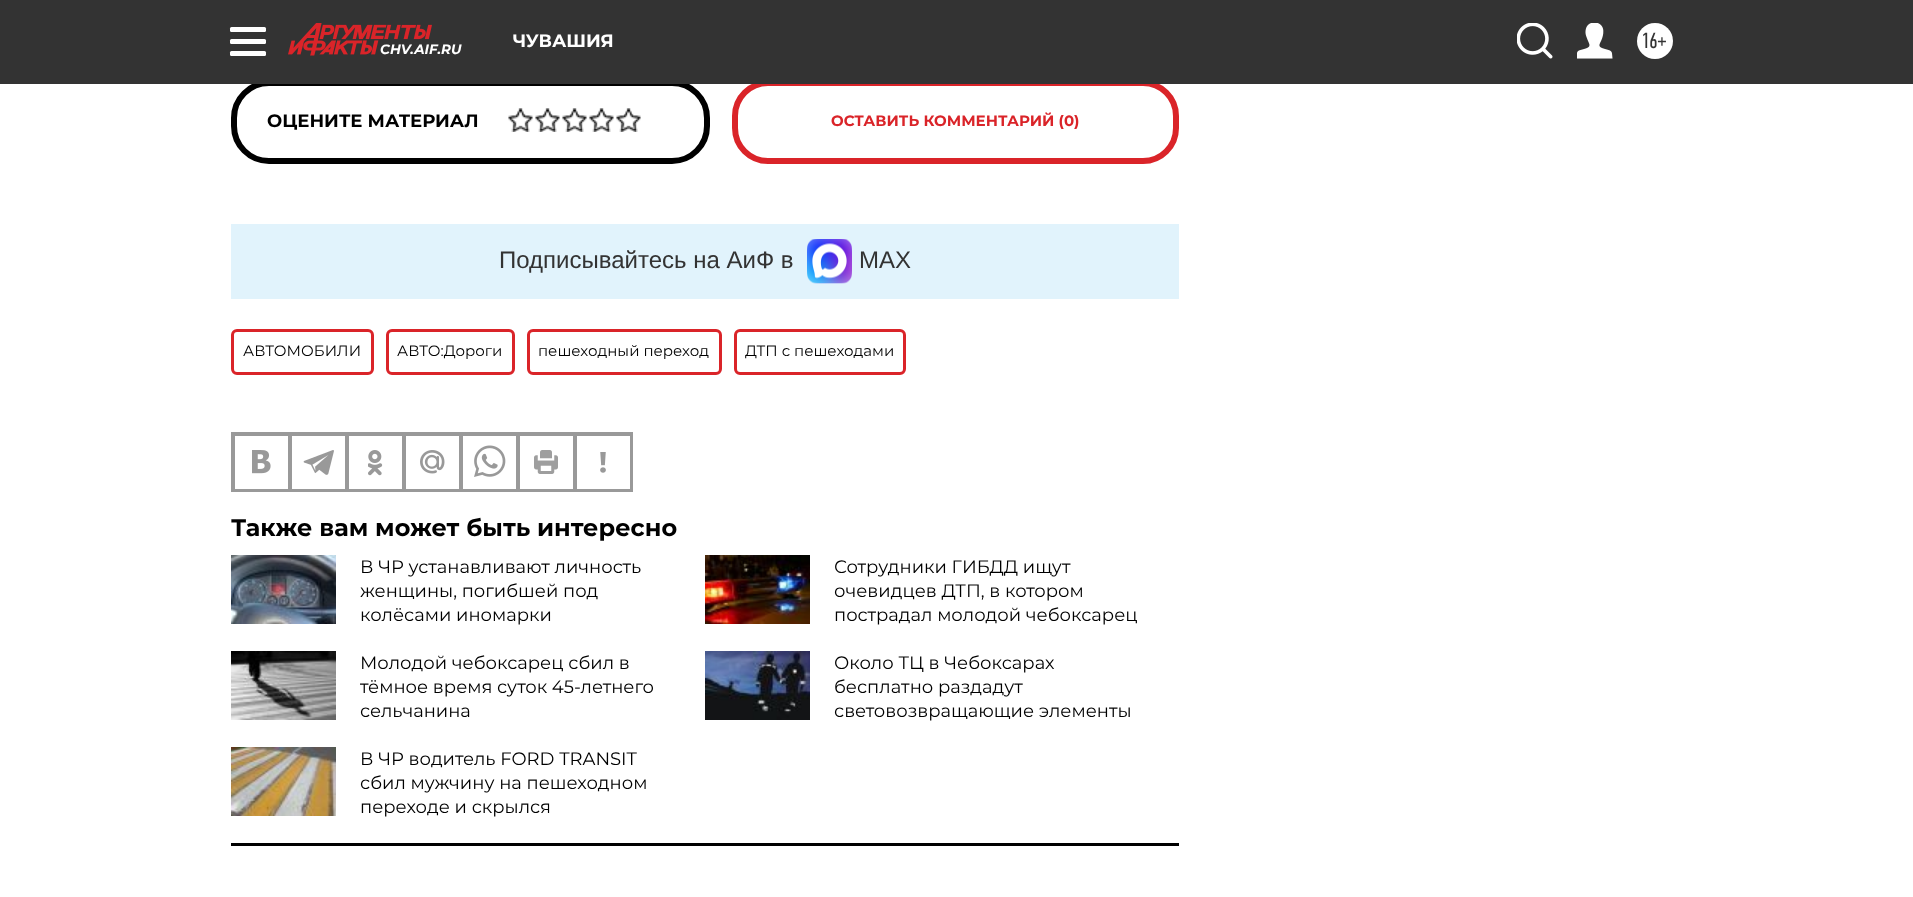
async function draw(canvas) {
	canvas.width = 1913;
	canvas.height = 897;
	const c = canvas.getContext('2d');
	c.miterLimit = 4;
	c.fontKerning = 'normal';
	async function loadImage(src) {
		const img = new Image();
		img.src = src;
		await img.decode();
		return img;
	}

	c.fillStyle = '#fff';
	c.fillRect(0, 0, 1913, 897);
	c.beginPath();
	c.roundRect(234, 83, 473, 78, 35);
	c.strokeStyle = '#000';
	c.lineWidth = 6;
	c.stroke();
	c.beginPath();
	c.roundRect(735, 83, 441, 78, 33);
	c.strokeStyle = '#da2429';
	c.stroke();
	c.fillStyle = '#333';
	c.fillRect(0, 0, 1913, 84);
	c.fillStyle = '#fff';
	c.beginPath();
	c.roundRect(230, 27, 36, 5, 1.5);
	c.fill();
	c.beginPath();
	c.roundRect(230, 39, 36, 5, 1.5);
	c.fill();
	c.beginPath();
	c.roundRect(230, 51, 36, 5, 1.5);
	c.fill();
	c.font = 'bold 18px Montserrat';
	c.fillText('ЧУВАШИЯ', 513, 47);
	c.drawImage(await loadImage('img1.png'), 1517, 23, 36, 36);
	c.drawImage(await loadImage('img2.png'), 1577, 23, 36, 36);
	c.beginPath();
	c.arc(1655, 41, 18, 0, 2 * Math.PI);
	c.fill();
	c.font = '22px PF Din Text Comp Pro';
	c.fillStyle = '#333';
	c.fillText('16+', 1641, 48);
	c.drawImage(await loadImage('img3.png'), 288, 23, 144, 33);
	c.font = 'italic bold 13.5px Montserrat';
	c.fillStyle = '#fff';
	c.fillText('CHV.AIF.RU', 380, 54);
	c.font = 'bold 18px Montserrat';
	c.fillStyle = '#000';
	c.fillText('ОЦЕНИТЕ МАТЕРИАЛ', 267, 127);
	c.drawImage(await loadImage('img4.png'), 508, 108, 25, 24);
	c.drawImage(await loadImage('img5.png'), 535, 108, 25, 24);
	c.drawImage(await loadImage('img5.png'), 562, 108, 25, 24);
	c.drawImage(await loadImage('img5.png'), 589, 108, 25, 24);
	c.drawImage(await loadImage('img5.png'), 616, 108, 25, 24);
	c.font = 'bold 15px Montserrat';
	c.fillStyle = '#da2429';
	c.fillText('ОСТАВИТЬ КОММЕНТАРИЙ (0)', 831, 126);
	c.fillStyle = '#e1f3fc';
	c.fillRect(231, 224, 948, 75);
	c.font = '24px Liberation Sans';
	c.fillStyle = '#333';
	c.fillText('Подписывайтесь на АиФ в', 499, 268);
	c.drawImage(await loadImage('img6.png'), 807, 239, 45, 45);
	c.fillText('MAX', 859, 268);
	c.beginPath();
	c.roundRect(232.5, 330.5, 140, 43, 4.5);
	c.lineWidth = 3;
	c.stroke();
	c.font = '15px Montserrat';
	c.fillStyle = '#000';
	c.fillText('АВТОМОБИЛИ', 243, 356);
	c.beginPath();
	c.roundRect(387.5, 330.5, 126, 43, 4.5);
	c.stroke();
	c.fillText('АВТО:Дороги', 397, 356);
	c.beginPath();
	c.roundRect(528.5, 330.5, 192, 43, 4.5);
	c.stroke();
	c.fillText('пешеходный переход', 538, 356);
	c.beginPath();
	c.roundRect(735.5, 330.5, 169, 43, 4.5);
	c.stroke();
	c.fillText('ДТП с пешеходами', 745, 356);
	c.strokeStyle = '#999';
	c.lineWidth = 2;
	c.strokeRect(232, 433, 400, 58);
	c.strokeRect(234, 435, 55, 55);
	c.drawImage(await loadImage('img7.png'), 252, 450, 19, 24);
	c.strokeRect(291, 435, 55, 55);
	c.drawImage(await loadImage('img8.png'), 303, 450, 31, 25);
	c.strokeRect(348, 435, 55, 55);
	c.drawImage(await loadImage('img9.png'), 368, 450, 15, 26);
	c.strokeRect(405, 435, 55, 55);
	c.drawImage(await loadImage('img10.png'), 420, 450, 25, 24);
	c.strokeRect(462, 435, 55, 55);
	c.drawImage(await loadImage('img11.png'), 474, 445, 32, 32);
	c.strokeRect(519, 435, 55, 55);
	c.drawImage(await loadImage('img12.png'), 534, 450, 24, 24);
	c.strokeRect(576, 435, 55, 55);
	c.drawImage(await loadImage('img13.png'), 600, 452, 6, 21);
	c.font = 'bold 24px Montserrat';
	c.fillText('Также вам может быть интересно', 231, 536);
	c.fillRect(231, 843, 948, 3);
	c.drawImage(await loadImage('img14.png'), 231, 555, 105, 69);
	c.font = '18px Montserrat';
	for (const [text, x, y] of [
		['В ЧР устанавливают личность', 360, 573],
		['женщины, погибшей под', 360, 597],
		['колёсами иномарки', 360, 621],
	]) {
		c.fillText(text, x, y);
	}
	c.drawImage(await loadImage('img15.png'), 705, 555, 105, 69);
	for (const [text, x, y] of [
		['Сотрудники ГИБДД ищут', 834, 573],
		['очевидцев ДТП, в котором', 834, 597],
		['пострадал молодой чебоксарец', 834, 621],
	]) {
		c.fillText(text, x, y);
	}
	c.drawImage(await loadImage('img16.png'), 231, 651, 105, 69);
	for (const [text, x, y] of [
		['Молодой чебоксарец сбил в', 360, 669],
		['тёмное время суток 45-летнего', 360, 693],
		['сельчанина', 360, 717],
	]) {
		c.fillText(text, x, y);
	}
	c.drawImage(await loadImage('img17.png'), 705, 651, 105, 69);
	for (const [text, x, y] of [
		['Около ТЦ в Чебоксарах', 834, 669],
		['бесплатно раздадут', 834, 693],
		['световозвращающие элементы', 834, 717],
	]) {
		c.fillText(text, x, y);
	}
	c.drawImage(await loadImage('img18.png'), 231, 747, 105, 69);
	for (const [text, x, y] of [
		['В ЧР водитель FORD TRANSIT', 360, 765],
		['сбил мужчину на пешеходном', 360, 789],
		['переходе и скрылся', 360, 813],
	]) {
		c.fillText(text, x, y);
	}
}

draw(document.querySelector('canvas'));
